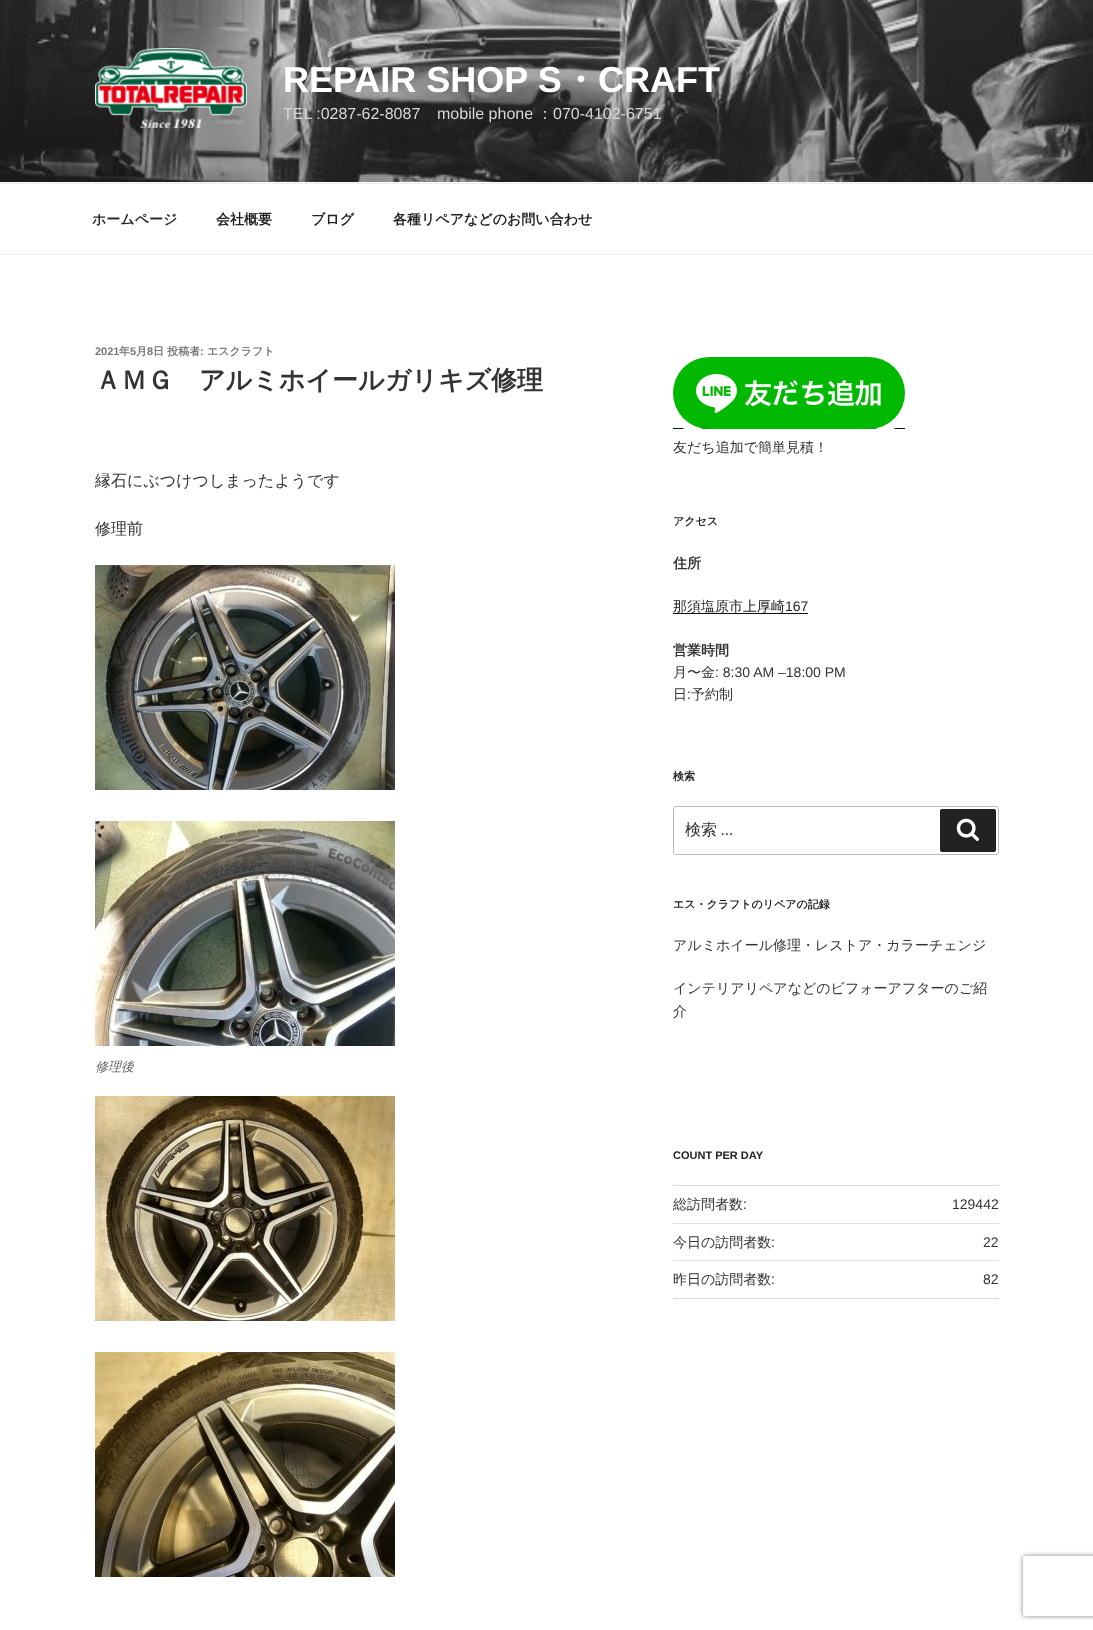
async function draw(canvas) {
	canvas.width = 1093;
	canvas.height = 1630;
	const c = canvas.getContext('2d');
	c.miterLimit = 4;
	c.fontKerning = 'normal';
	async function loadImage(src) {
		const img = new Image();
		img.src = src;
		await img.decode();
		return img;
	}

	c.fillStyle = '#fff';
	c.fillRect(0, 0, 1093, 1630);
	c.fillStyle = '#fafafa';
	c.fillRect(0, 182, 1093, 1);
	c.drawImage(await loadImage('img1.png'), 0, 0, 1093, 182);
	c.drawImage(await loadImage('img2.png'), 95, 48, 152, 80);
	c.font = 'bold 36px Liberation Sans';
	c.fillStyle = '#fff';
	c.fillText('REPAIR SHOP S', 283, 92);
	c.font = 'bold 36px WenQuanYi Zen Hei';
	c.fillText('・', 562, 92);
	c.font = 'bold 36px Liberation Sans';
	c.fillText('CRAFT', 598, 92);
	c.font = '16px Liberation Sans';
	c.fillStyle = '#d7d7d7';
	c.fillText('TEL :0287-62-8087', 283, 119);
	c.fillText('mobile phone', 437, 119);
	c.font = '500 16px WenQuanYi Zen Hei';
	c.fillText('：', 537, 119);
	c.font = '16px Liberation Sans';
	c.fillText('070-4102-6751', 553, 119);
	c.fillStyle = '#eee';
	c.fillRect(0, 183, 1093, 1);
	c.fillRect(0, 254, 1093, 1);
	c.font = 'bold 14px WenQuanYi Zen Hei';
	c.fillStyle = '#222';
	for (const [text, x, y] of [
		['ホームページ', 92, 224],
		['会社概要', 216, 224],
		['ブログ', 311, 224],
		['各種リペアなどのお問い合わせ', 393, 224],
	]) {
		c.fillText(text, x, y);
	}
	c.font = 'bold 11px Liberation Sans';
	c.fillStyle = '#767676';
	c.fillText('2021', 95, 355);
	c.font = 'bold 11px WenQuanYi Zen Hei';
	c.fillText('年', 119, 355);
	c.font = 'bold 11px Liberation Sans';
	c.fillText('5', 130, 355);
	c.font = 'bold 11px WenQuanYi Zen Hei';
	c.fillText('月', 136, 355);
	c.font = 'bold 11px Liberation Sans';
	c.fillText('8', 147, 355);
	c.font = 'bold 11px WenQuanYi Zen Hei';
	c.fillText('日 投稿者', 153, 355);
	c.font = 'bold 11px Liberation Sans';
	c.fillText(':', 200, 355);
	c.font = 'bold 11px WenQuanYi Zen Hei';
	c.fillText('エスクラフト', 207, 355);
	c.font = 'bold 26px WenQuanYi Zen Hei';
	c.fillStyle = '#333';
	c.fillText('ＡＭＧ　アルミホイールガリキズ修理', 95, 389);
	c.font = '500 16px WenQuanYi Zen Hei';
	c.fillText('縁石にぶつけつしまったようです', 95, 486);
	c.fillText('修理前', 95, 534);
	c.drawImage(await loadImage('img3.png'), 95, 565, 300, 225);
	c.drawImage(await loadImage('img4.png'), 95, 821, 300, 225);
	c.font = 'italic 500 13px WenQuanYi Zen Hei';
	c.fillStyle = '#666';
	c.fillText('修理後', 95, 1071);
	c.drawImage(await loadImage('img5.png'), 95, 1096, 300, 225);
	c.drawImage(await loadImage('img6.png'), 95, 1352, 300, 225);
	c.fillStyle = '#0f0f0f';
	c.fillRect(673, 428, 232, 1);
	c.beginPath();
	c.roundRect(669, 353, 240, 80, 40);
	c.strokeStyle = '#fff';
	c.lineWidth = 8;
	c.stroke();
	c.drawImage(await loadImage('img7.png'), 673, 357, 232, 72);
	c.font = '500 14px WenQuanYi Zen Hei';
	c.fillStyle = '#333';
	c.fillText('友だち追加で簡単見積！', 673, 452);
	c.font = 'bold 11px WenQuanYi Zen Hei';
	c.fillStyle = '#222';
	c.fillText('アクセス', 673, 525);
	c.font = 'bold 14px WenQuanYi Zen Hei';
	c.fillStyle = '#333';
	c.fillText('住所', 673, 568);
	c.fillStyle = '#0f0f0f';
	c.fillRect(673, 613, 135, 1);
	c.font = '500 14px WenQuanYi Zen Hei';
	c.fillStyle = '#222';
	c.fillText('那須塩原市上厚崎', 673, 611);
	c.font = '14px Liberation Sans';
	c.fillText('167', 785, 611);
	c.font = 'bold 14px WenQuanYi Zen Hei';
	c.fillStyle = '#333';
	c.fillText('営業時間', 673, 655);
	c.font = '500 14px WenQuanYi Zen Hei';
	c.fillText('月〜金', 673, 677);
	c.font = '14px Liberation Sans';
	c.fillText(': 8:30 AM –18:00 PM', 715, 677);
	c.font = '500 14px WenQuanYi Zen Hei';
	c.fillText('日', 673, 699);
	c.font = '14px Liberation Sans';
	c.fillText(':', 687, 699);
	c.font = '500 14px WenQuanYi Zen Hei';
	c.fillText('予約制', 691, 699);
	c.font = 'bold 11px WenQuanYi Zen Hei';
	c.fillStyle = '#222';
	c.fillText('検索', 673, 780);
	c.beginPath();
	c.roundRect(673.5, 806.5, 325, 48, 2.5);
	c.strokeStyle = '#bbb';
	c.lineWidth = 1;
	c.stroke();
	c.font = '500 16px WenQuanYi Zen Hei';
	c.fillStyle = '#333';
	c.fillText('検索', 685, 835);
	c.font = '16px Libre Franklin';
	c.fillText('…', 721, 835);
	c.fillStyle = '#222';
	c.beginPath();
	c.roundRect(940, 809, 56, 43, 2);
	c.fill();
	c.drawImage(await loadImage('img8.png'), 956, 818, 23, 23);
	c.font = 'bold 11px WenQuanYi Zen Hei';
	c.fillText('エス・クラフトのリペアの記録', 673, 908);
	c.font = '500 14px WenQuanYi Zen Hei';
	c.fillStyle = '#333';
	for (const [text, x, y] of [
		['アルミホイール修理・レストア・カラーチェンジ', 673, 950],
		['インテリアリペアなどのビフォーアフターのご紹', 673, 993],
		['介', 673, 1016],
	]) {
		c.fillText(text, x, y);
	}
	c.font = 'bold 11px Liberation Sans';
	c.fillStyle = '#222';
	c.fillText('COUNT PER DAY', 673, 1159);
	c.fillStyle = '#ddd';
	c.fillRect(673, 1185, 326, 1);
	c.fillRect(673, 1223, 326, 1);
	c.font = '500 14px WenQuanYi Zen Hei';
	c.fillStyle = '#333';
	c.fillText('総訪問者数', 673, 1209);
	c.font = '14px Liberation Sans';
	c.fillText(':', 743, 1209);
	c.fillText('129442', 952, 1209);
	c.fillStyle = '#ddd';
	c.fillRect(673, 1260, 326, 1);
	c.font = '500 14px WenQuanYi Zen Hei';
	c.fillStyle = '#333';
	c.fillText('今日の訪問者数', 673, 1247);
	c.font = '14px Liberation Sans';
	c.fillText(':', 771, 1247);
	c.fillText('22', 983, 1247);
	c.fillStyle = '#ddd';
	c.fillRect(673, 1298, 326, 1);
	c.font = '500 14px WenQuanYi Zen Hei';
	c.fillStyle = '#333';
	c.fillText('昨日の訪問者数', 673, 1284);
	c.font = '14px Liberation Sans';
	c.fillText(':', 771, 1284);
	c.fillText('82', 983, 1284);
	c.save();
	c.beginPath();
	c.moveTo(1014, 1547);
	c.lineTo(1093, 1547);
	c.lineTo(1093, 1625);
	c.lineTo(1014, 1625);
	c.closePath();
	c.moveTo(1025, 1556);
	c.lineTo(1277, 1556);
	c.bezierCurveTo(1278, 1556, 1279, 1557, 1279, 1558);
	c.lineTo(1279, 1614);
	c.bezierCurveTo(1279, 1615, 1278, 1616, 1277, 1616);
	c.lineTo(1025, 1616);
	c.bezierCurveTo(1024, 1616, 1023, 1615, 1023, 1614);
	c.lineTo(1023, 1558);
	c.bezierCurveTo(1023, 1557, 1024, 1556, 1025, 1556);
	c.closePath();
	c.clip('evenodd');
	c.fillStyle = '#808080';
	c.filter = 'blur(2.5px)';
	c.beginPath();
	c.roundRect(1023, 1556, 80, 60, 2);
	c.fill();
	c.filter = 'none';
	c.restore();
}

draw(document.querySelector('canvas'));
